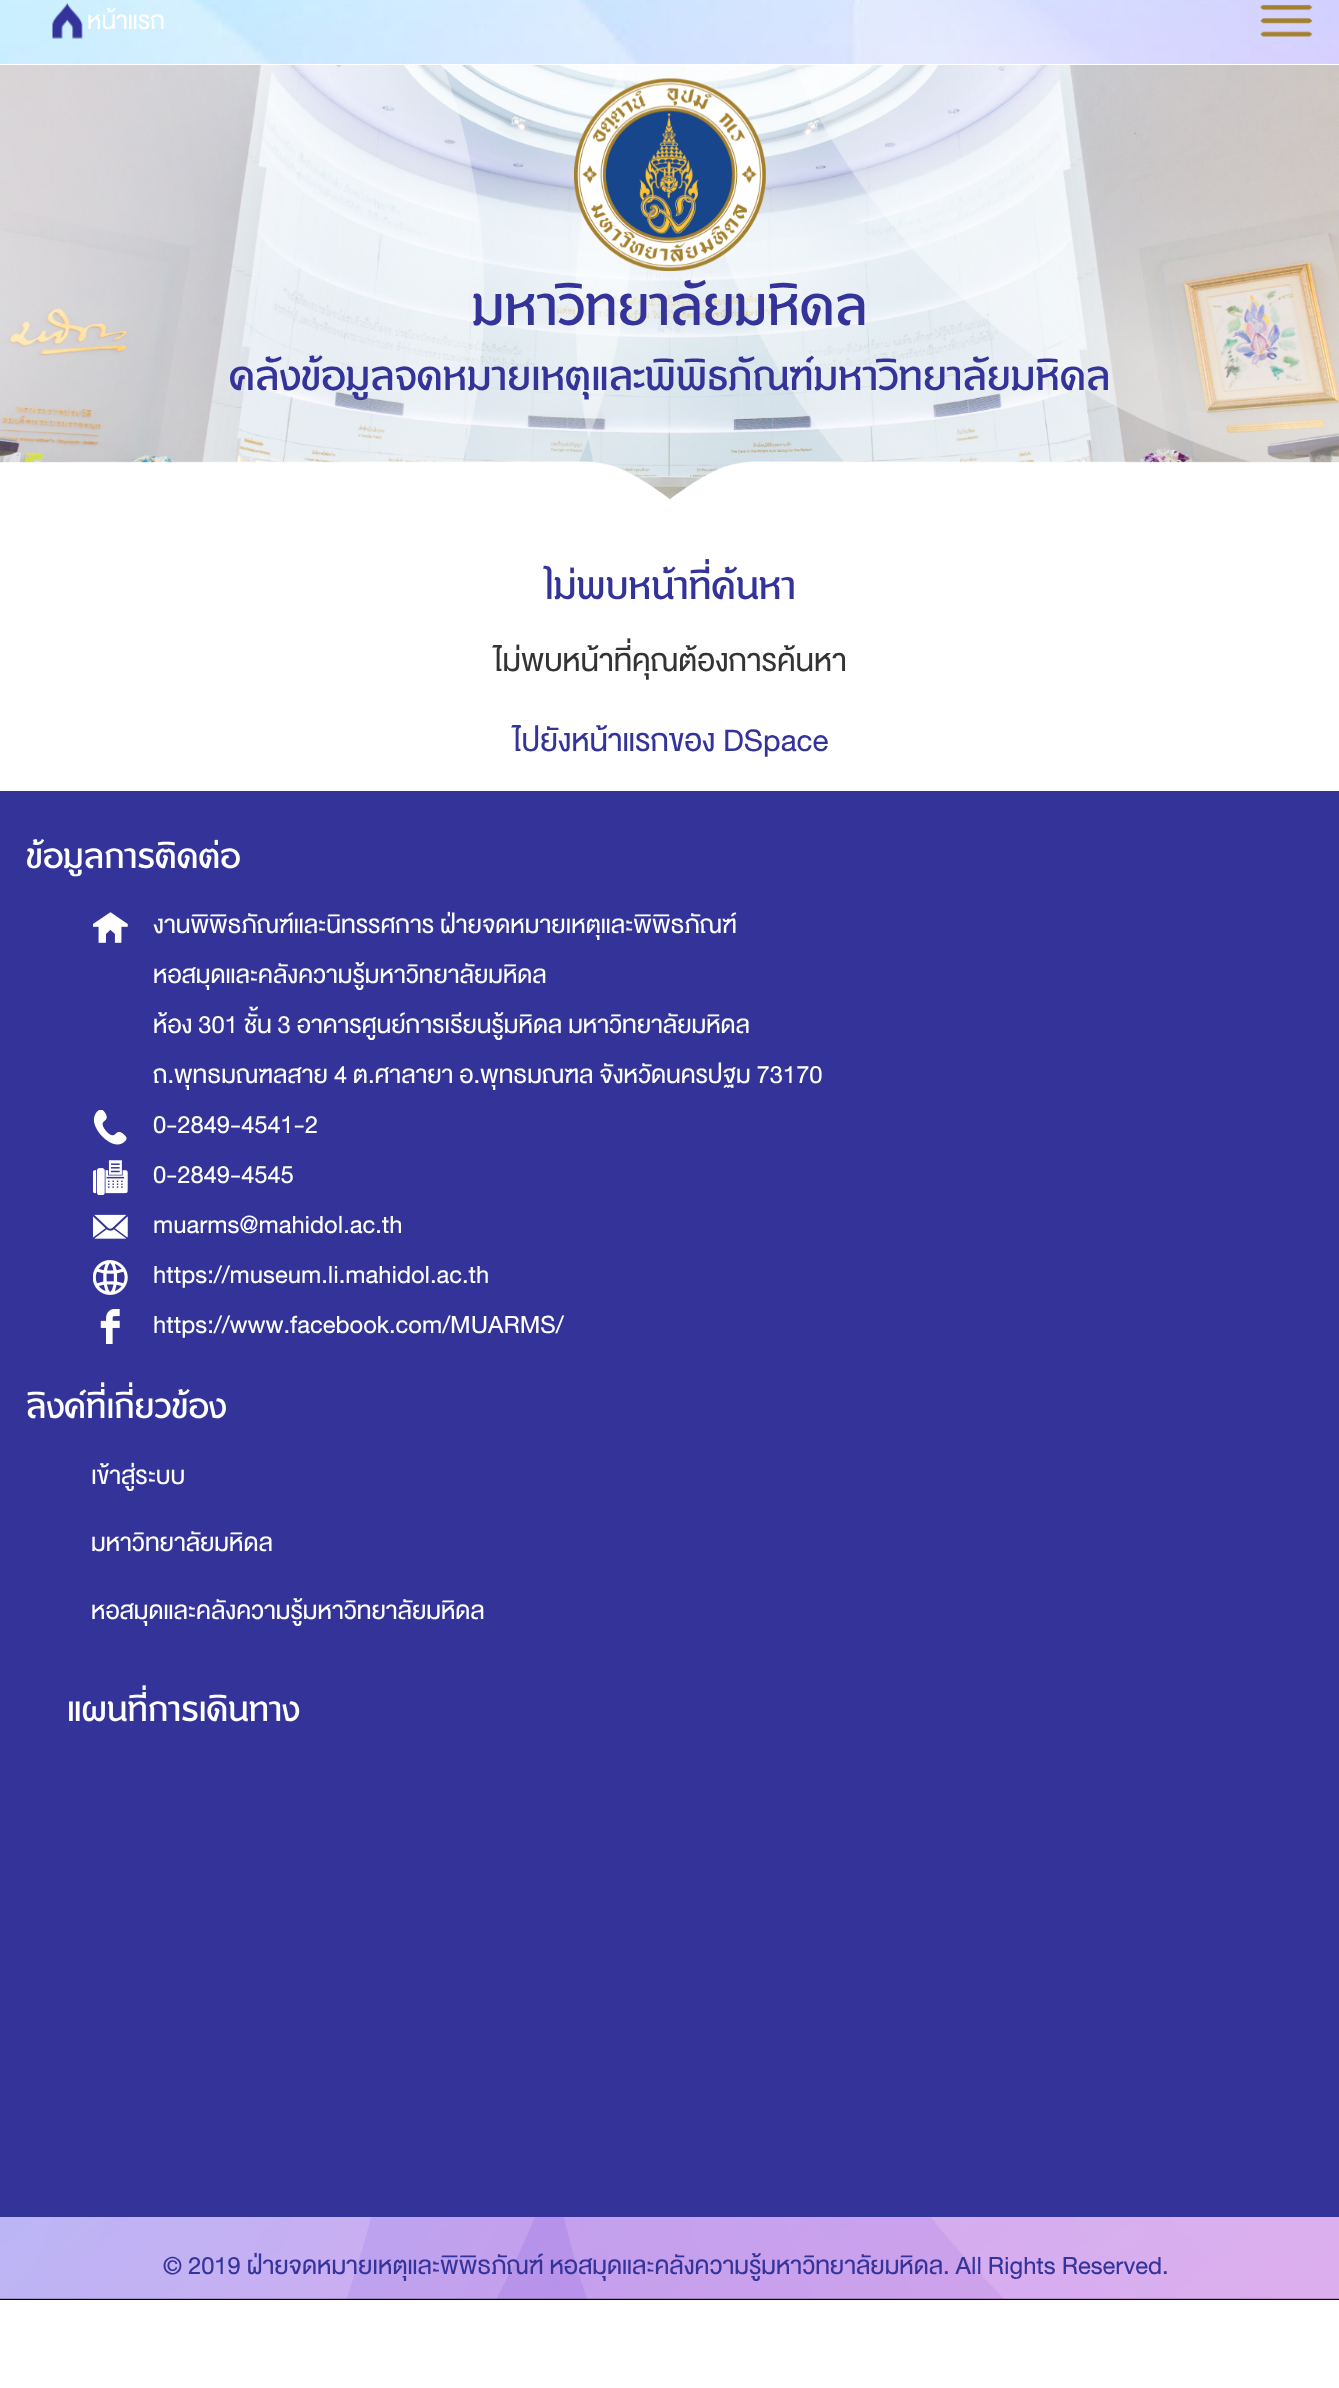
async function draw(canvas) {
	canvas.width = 1339;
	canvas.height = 2388;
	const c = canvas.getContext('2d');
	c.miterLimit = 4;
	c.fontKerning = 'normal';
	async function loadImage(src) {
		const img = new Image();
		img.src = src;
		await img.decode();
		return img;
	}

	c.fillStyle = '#fff';
	c.fillRect(0, 0, 1339, 2388);
	c.drawImage(await loadImage('img1.png'), 0, 0, 1339, 64);
	c.drawImage(await loadImage('img2.png'), 52, 3, 31, 36);
	c.font = '35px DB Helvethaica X';
	c.fillText('หน้าแรก', 87, 29);
	c.drawImage(await loadImage('img3.png'), 1260, 5, 53, 32);
	c.drawImage(await loadImage('img4.png'), 0, 65, 1339, 435);
	c.drawImage(await loadImage('img5.png'), 574, 78, 192, 193);
	c.font = '70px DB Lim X';
	c.fillStyle = '#339';
	c.fillText('มหาวิทยาลัยมหิดล', 472, 325);
	c.font = '52.5px DB Lim X';
	c.fillText('คลังข้อมูลจดหมายเหตุและพิพิธภัณฑ์มหาวิทยาลัยมหิดล', 229, 390);
	c.font = '49px DB Lim X';
	c.fillText('ไม่พบหน้าที่ค้นหา', 545, 599);
	c.font = '43.75px DB Helvethaica X';
	c.fillStyle = '#333';
	c.fillText('ไม่พบหน้าที่คุณต้องการค้นหา', 494, 671);
	c.fillStyle = '#339';
	c.fillText('ไปยังหน้าแรกของ DSpace', 513, 751);
	c.fillRect(0, 791, 1339, 1426);
	c.font = '43.75px DB Lim X';
	c.fillStyle = '#fff';
	c.fillText('ข้อมูลการติดต่อ', 26, 868);
	c.drawImage(await loadImage('img6.png'), 93, 912, 35, 31);
	c.font = '35px DB Helvethaica X';
	for (const [text, x, y] of [
		['งานพิพิธภัณฑ์และนิทรรศการ ฝ่ายจดหมายเหตุและพิพิธภัณฑ์', 153, 933],
		['หอสมุดและคลังความรู้มหาวิทยาลัยมหิดล', 153, 983],
		['ห้อง 301 ชั้น 3 อาคารศูนย์การเรียนรู้มหิดล มหาวิทยาลัยมหิดล', 153, 1033],
		['ถ.พุทธมณฑลสาย 4 ต.ศาลายา อ.พุทธมณฑล จังหวัดนครปฐม 73170', 153, 1083],
	]) {
		c.fillText(text, x, y);
	}
	c.drawImage(await loadImage('img7.png'), 93, 1110, 34, 35);
	c.fillText('0-2849-4541-2', 153, 1133);
	c.drawImage(await loadImage('img8.png'), 93, 1160, 35, 35);
	c.fillText('0-2849-4545', 153, 1183);
	c.drawImage(await loadImage('img9.png'), 93, 1214, 35, 25);
	c.fillText('muarms@mahidol.ac.th', 153, 1233);
	c.drawImage(await loadImage('img10.png'), 93, 1260, 35, 35);
	c.fillText('https://museum.li.mahidol.ac.th', 153, 1283);
	c.drawImage(await loadImage('img11.png'), 100, 1309, 20, 35);
	c.fillText('https://www.facebook.com/MUARMS/', 153, 1333);
	c.font = '43.75px DB Lim X';
	c.fillText('ลิงค์ที่เกี่ยวข้อง', 26, 1418);
	c.font = '35px DB Helvethaica X';
	for (const [text, x, y] of [
		['เข้าสู่ระบบ', 91, 1484],
		['มหาวิทยาลัยมหิดล', 91, 1551],
		['หอสมุดและคลังความรู้มหาวิทยาลัยมหิดล', 91, 1619],
	]) {
		c.fillText(text, x, y);
	}
	c.font = '43.75px DB Lim X';
	c.fillText('แผนที่การเดินทาง', 67, 1721);
	c.fillStyle = '#000';
	c.fillRect(0, 2298, 1339, 2);
	c.drawImage(await loadImage('img12.png'), 0, 2217, 1339, 83);
	c.font = '35px DB Helvethaica X';
	c.fillStyle = '#339';
	c.fillText('© 2019 ฝ่ายจดหมายเหตุและพิพิธภัณฑ์ หอสมุดและคลังความรู้มหาวิทยาลัยมหิดล. All Rights Reserved.', 163, 2274);
}

draw(document.querySelector('canvas'));
